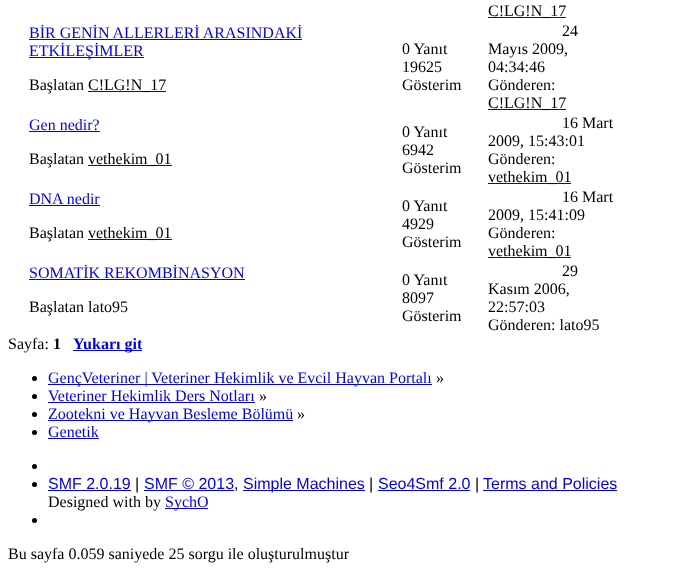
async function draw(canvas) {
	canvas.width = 698;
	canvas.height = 579;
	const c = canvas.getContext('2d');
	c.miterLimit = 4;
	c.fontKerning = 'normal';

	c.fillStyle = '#fff';
	c.fillRect(0, 0, 698, 579);
	c.fillStyle = '#00e';
	c.fillRect(488, 17, 78, 1);
	c.font = '16px Liberation Serif';
	c.fillStyle = '#000';
	c.fillText('C!LG!N_17', 488, 16);
	c.fillStyle = '#00e';
	c.fillText('BİR GENİN ALLERLERİ ARASINDAKİ', 29, 38);
	c.fillRect(29, 39, 273, 1);
	c.fillRect(29, 57, 115, 1);
	c.fillText('ETKİLEŞİMLER', 29, 56);
	c.fillStyle = '#000';
	c.fillText('Başlatan', 29, 90);
	c.fillStyle = '#00e';
	c.fillRect(88, 91, 78, 1);
	c.fillStyle = '#000';
	for (const [text, x, y] of [
		['C!LG!N_17', 88, 90],
		['0 Yanıt', 402, 54],
		['19625', 402, 72],
		['Gösterim', 402, 90],
		['24', 562, 36],
		['Mayıs 2009,', 488, 54],
		['04:34:46', 488, 72],
		['Gönderen:', 488, 90],
	]) {
		c.fillText(text, x, y);
	}
	c.fillStyle = '#00e';
	c.fillRect(488, 109, 78, 1);
	c.fillStyle = '#000';
	c.fillText('C!LG!N_17', 488, 108);
	c.fillStyle = '#00e';
	c.fillText('Gen nedir?', 29, 130);
	c.fillRect(29, 131, 71, 1);
	c.fillStyle = '#000';
	c.fillText('Başlatan', 29, 164);
	c.fillStyle = '#00e';
	c.fillRect(88, 165, 84, 1);
	c.fillStyle = '#000';
	for (const [text, x, y] of [
		['vethekim_01', 88, 164],
		['0 Yanıt', 402, 137],
		['6942', 402, 155],
		['Gösterim', 402, 173],
		['16 Mart', 562, 128],
		['2009, 15:43:01', 488, 146],
		['Gönderen:', 488, 164],
	]) {
		c.fillText(text, x, y);
	}
	c.fillStyle = '#00e';
	c.fillRect(488, 183, 83, 1);
	c.fillStyle = '#000';
	c.fillText('vethekim_01', 488, 182);
	c.fillStyle = '#00e';
	c.fillText('DNA nedir', 29, 204);
	c.fillRect(29, 205, 71, 1);
	c.fillStyle = '#000';
	c.fillText('Başlatan', 29, 238);
	c.fillStyle = '#00e';
	c.fillRect(88, 239, 84, 1);
	c.fillStyle = '#000';
	for (const [text, x, y] of [
		['vethekim_01', 88, 238],
		['0 Yanıt', 402, 211],
		['4929', 402, 229],
		['Gösterim', 402, 247],
		['16 Mart', 562, 202],
		['2009, 15:41:09', 488, 220],
		['Gönderen:', 488, 238],
	]) {
		c.fillText(text, x, y);
	}
	c.fillStyle = '#00e';
	c.fillRect(488, 257, 83, 1);
	c.fillStyle = '#000';
	c.fillText('vethekim_01', 488, 256);
	c.fillStyle = '#00e';
	c.fillText('SOMATİK REKOMBİNASYON', 29, 278);
	c.fillRect(29, 279, 216, 1);
	c.fillStyle = '#000';
	for (const [text, x, y] of [
		['Başlatan lato95', 29, 312],
		['0 Yanıt', 402, 285],
		['8097', 402, 303],
		['Gösterim', 402, 321],
		['29', 562, 276],
		['Kasım 2006,', 488, 294],
		['22:57:03', 488, 312],
		['Gönderen: lato95', 488, 330],
		['Sayfa:', 8, 349],
	]) {
		c.fillText(text, x, y);
	}
	c.font = 'bold 16px Liberation Serif';
	c.fillText('1', 53, 349);
	c.fillStyle = '#00e';
	c.fillRect(73, 350, 69, 1);
	c.fillText('Yukarı git', 73, 349);
	c.fillStyle = '#000';
	c.beginPath();
	c.arc(34.5, 378.5, 2.5, 0, 2 * Math.PI);
	c.fill();
	c.fillStyle = '#00e';
	c.fillRect(48, 384, 384, 1);
	c.font = '16px Liberation Serif';
	c.fillText('GençVeteriner | Veteriner Hekimlik ve Evcil Hayvan Portalı', 48, 383);
	c.fillStyle = '#000';
	c.fillText('»', 436, 383);
	c.beginPath();
	c.arc(34.5, 396.5, 2.5, 0, 2 * Math.PI);
	c.fill();
	c.fillStyle = '#00e';
	c.fillText('Veteriner Hekimlik Ders Notları', 48, 401);
	c.fillRect(48, 402, 207, 1);
	c.fillStyle = '#000';
	c.fillText('»', 259, 401);
	c.beginPath();
	c.arc(34.5, 414.5, 2.5, 0, 2 * Math.PI);
	c.fill();
	c.fillStyle = '#00e';
	c.fillRect(48, 420, 245, 1);
	c.fillText('Zootekni ve Hayvan Besleme Bölümü', 48, 419);
	c.fillStyle = '#000';
	c.fillText('»', 297, 419);
	c.beginPath();
	c.arc(34.5, 432.5, 2.5, 0, 2 * Math.PI);
	c.fill();
	c.fillStyle = '#00e';
	c.fillText('Genetik', 48, 437);
	c.fillRect(48, 438, 51, 1);
	c.fillStyle = '#000';
	c.beginPath();
	c.arc(34.5, 466.5, 2.5, 0, 2 * Math.PI);
	c.fill();
	c.beginPath();
	c.arc(34.5, 484.5, 2.5, 0, 2 * Math.PI);
	c.fill();
	c.font = '16px Liberation Sans';
	c.fillStyle = '#00e';
	c.fillText('SMF 2.0.19', 48, 489);
	c.fillRect(48, 490, 83, 1);
	c.fillStyle = '#000';
	c.fillText('|', 135, 489);
	c.fillStyle = '#00e';
	c.fillText('SMF © 2013', 144, 489);
	c.fillRect(243, 490, 122, 1);
	c.fillText('Simple Machines', 243, 489);
	c.fillStyle = '#000';
	c.fillText('|', 369, 489);
	c.fillStyle = '#00e';
	c.fillText('Seo4Smf 2.0', 378, 489);
	c.fillRect(378, 490, 92, 1);
	c.fillStyle = '#000';
	c.fillText('|', 475, 489);
	c.fillStyle = '#00e';
	c.fillText('Terms and Policies', 483, 489);
	c.fillRect(483, 490, 134, 1);
	c.fillStyle = '#000';
	c.fillText(',', 234, 489);
	c.fillStyle = '#00e';
	c.fillRect(144, 490, 90, 1);
	c.font = '16px Liberation Serif';
	c.fillStyle = '#000';
	c.fillText('Designed with by', 48, 507);
	c.fillStyle = '#00e';
	c.fillRect(165, 508, 43, 1);
	c.fillText('SychO', 165, 507);
	c.fillStyle = '#000';
	c.beginPath();
	c.arc(34.5, 520.5, 2.5, 0, 2 * Math.PI);
	c.fill();
	c.fillText('Bu sayfa 0.059 saniyede 25 sorgu ile oluşturulmuştur', 8, 559);
}

draw(document.querySelector('canvas'));
